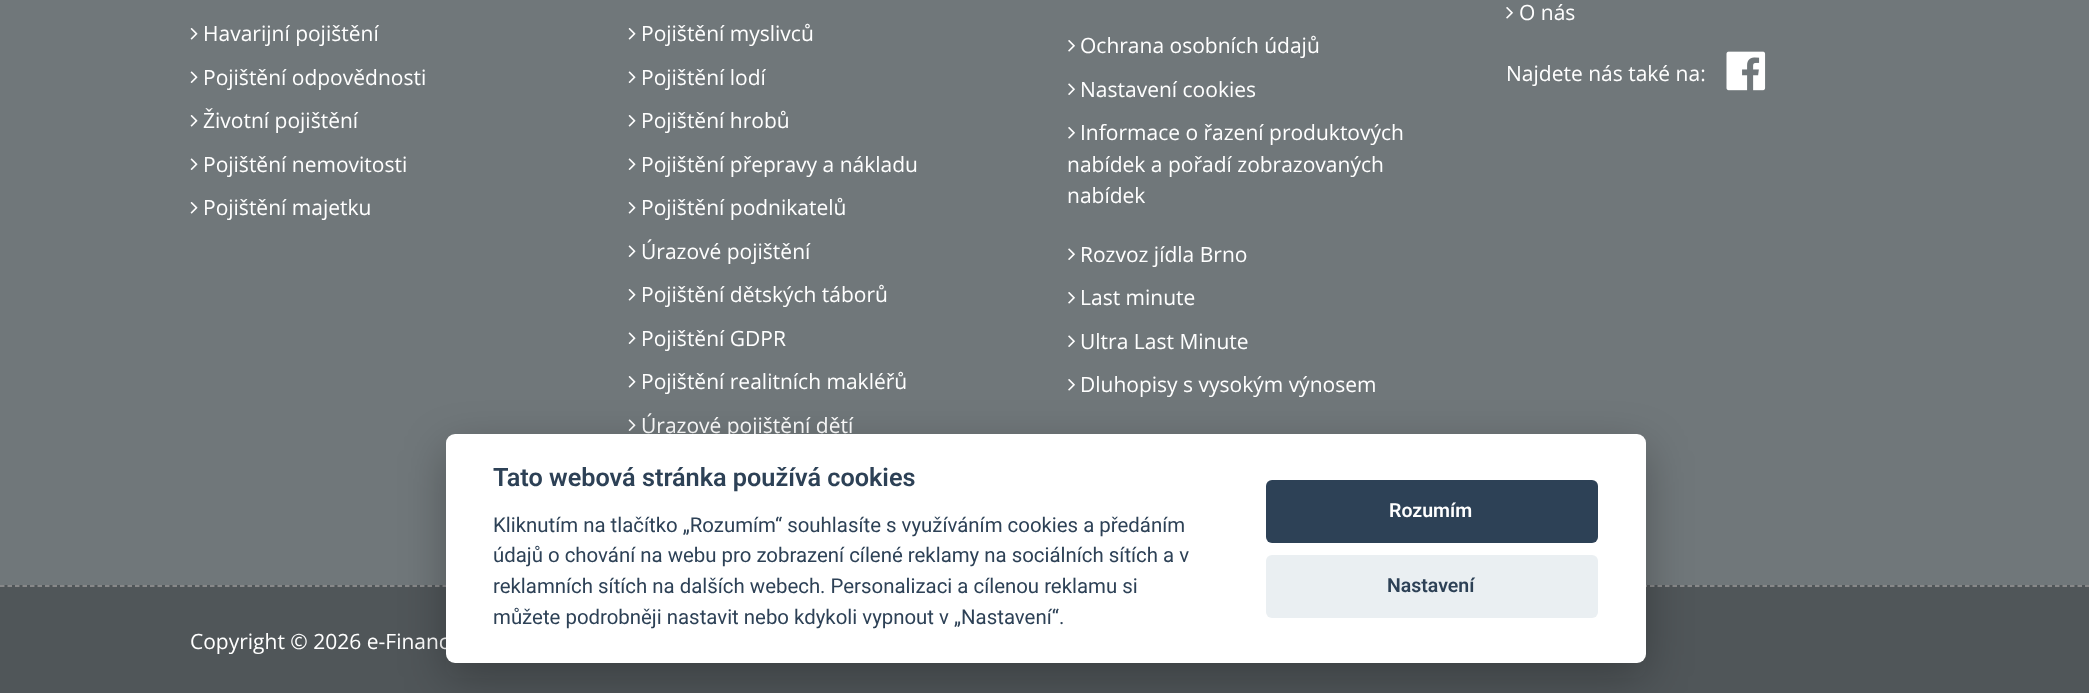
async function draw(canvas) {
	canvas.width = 2089;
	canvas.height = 693;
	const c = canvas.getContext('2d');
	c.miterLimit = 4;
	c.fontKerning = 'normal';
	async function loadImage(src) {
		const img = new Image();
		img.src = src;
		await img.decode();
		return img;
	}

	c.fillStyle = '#70777a';
	c.fillRect(0, 0, 2089, 693);
	c.drawImage(await loadImage('img1.png'), 190, 28, 8, 12);
	c.font = '21px Open Sans';
	c.fillStyle = '#fff';
	c.fillText('Havarijní pojištění', 203, 41);
	c.drawImage(await loadImage('img2.png'), 190, 71, 8, 12);
	c.fillText('Pojištění odpovědnosti', 203, 85);
	c.drawImage(await loadImage('img1.png'), 190, 115, 8, 12);
	c.fillText('Životní pojištění', 203, 128);
	c.drawImage(await loadImage('img2.png'), 190, 158, 8, 12);
	c.fillText('Pojištění nemovitosti', 203, 172);
	c.drawImage(await loadImage('img1.png'), 190, 202, 8, 12);
	c.fillText('Pojištění majetku', 203, 215);
	c.drawImage(await loadImage('img1.png'), 628, 28, 8, 12);
	c.fillText('Pojištění myslivců', 641, 41);
	c.drawImage(await loadImage('img2.png'), 628, 71, 8, 12);
	c.fillText('Pojištění lodí', 641, 85);
	c.drawImage(await loadImage('img1.png'), 628, 115, 8, 12);
	c.fillText('Pojištění hrobů', 641, 128);
	c.drawImage(await loadImage('img2.png'), 628, 158, 8, 12);
	c.fillText('Pojištění přepravy a nákladu', 641, 172);
	c.drawImage(await loadImage('img1.png'), 628, 202, 8, 12);
	c.fillText('Pojištění podnikatelů', 641, 215);
	c.drawImage(await loadImage('img2.png'), 628, 245, 8, 12);
	c.fillText('Úrazové pojištění', 641, 259);
	c.drawImage(await loadImage('img1.png'), 628, 289, 8, 12);
	c.fillText('Pojištění dětských táborů', 641, 302);
	c.drawImage(await loadImage('img2.png'), 628, 332, 8, 12);
	c.fillText('Pojištění GDPR', 641, 346);
	c.drawImage(await loadImage('img1.png'), 628, 376, 8, 12);
	c.fillText('Pojištění realitních makléřů', 641, 389);
	c.drawImage(await loadImage('img2.png'), 628, 419, 8, 12);
	c.fillText('Úrazové pojištění dětí', 641, 433);
	c.drawImage(await loadImage('img3.png'), 1068, 40, 7, 12);
	c.fillText('Ochrana osobních údajů', 1080, 53);
	c.drawImage(await loadImage('img4.png'), 1068, 83, 7, 12);
	c.fillText('Nastavení cookies', 1080, 97);
	c.drawImage(await loadImage('img3.png'), 1068, 127, 7, 12);
	for (const [text, x, y] of [
		['Informace o řazení produktových', 1080, 140],
		['nabídek a pořadí zobrazovaných', 1067, 172],
		['nabídek', 1067, 203],
	]) {
		c.fillText(text, x, y);
	}
	c.drawImage(await loadImage('img4.png'), 1068, 248, 7, 12);
	c.fillText('Rozvoz jídla Brno', 1080, 262);
	c.drawImage(await loadImage('img3.png'), 1068, 292, 7, 12);
	c.fillText('Last minute', 1080, 305);
	c.drawImage(await loadImage('img4.png'), 1068, 335, 7, 12);
	c.fillText('Ultra Last Minute', 1080, 349);
	c.drawImage(await loadImage('img3.png'), 1068, 379, 7, 12);
	c.fillText('Dluhopisy s vysokým výnosem', 1080, 392);
	c.drawImage(await loadImage('img3.png'), 1506, 7, 7, 12);
	c.fillText('O nás', 1519, 20);
	c.fillText('Najdete nás také na:', 1506, 81);
	c.drawImage(await loadImage('img5.png'), 1726, 51, 40, 40);
	c.fillStyle = '#505659';
	c.fillRect(0, 585, 2089, 108);
	c.beginPath();
	c.moveTo(0, 586);
	c.lineTo(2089.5, 586);
	c.strokeStyle = '#999';
	c.lineWidth = 1.5;
	c.setLineDash([4.5, 3]);
	c.stroke();
	c.fillStyle = '#fff';
	c.fillText('Copyright © 2026 e-Financ', 190, 649);
	c.fillStyle = '#02020347';
	c.filter = 'blur(22.5px)';
	c.beginPath();
	c.roundRect(446, 449, 1200, 229, 9);
	c.fill();
	c.filter = 'none';
	c.fillStyle = '#fff';
	c.beginPath();
	c.roundRect(446, 434, 1200, 229, 9);
	c.fill();
	c.font = '600 25.25px Roboto';
	c.fillStyle = '#2d4156';
	c.fillText('Tato webová stránka používá cookies', 493, 486);
	c.font = '20.4px Roboto';
	for (const [text, x, y] of [
		['Kliknutím na tlačítko „Rozumím“ souhlasíte s využíváním cookies a předáním', 493, 532],
		['údajů o chování na webu pro zobrazení cílené reklamy na sociálních sítích a v', 493, 562],
		['reklamních sítích na dalších webech. Personalizaci a cílenou reklamu si', 493, 593],
		['můžete podrobněji nastavit nebo kdykoli vypnout v „Nastavení“.', 493, 624],
	]) {
		c.fillText(text, x, y);
	}
	c.beginPath();
	c.roundRect(1266, 480, 332, 63, 6);
	c.fill();
	c.font = '600 19.5px Roboto';
	c.fillStyle = '#fff';
	c.fillText('Rozumím', 1389, 517);
	c.fillStyle = '#eaeff2';
	c.beginPath();
	c.roundRect(1266, 555, 332, 63, 6);
	c.fill();
	c.fillStyle = '#2d4156';
	c.fillText('Nastavení', 1387, 592);
}

draw(document.querySelector('canvas'));
